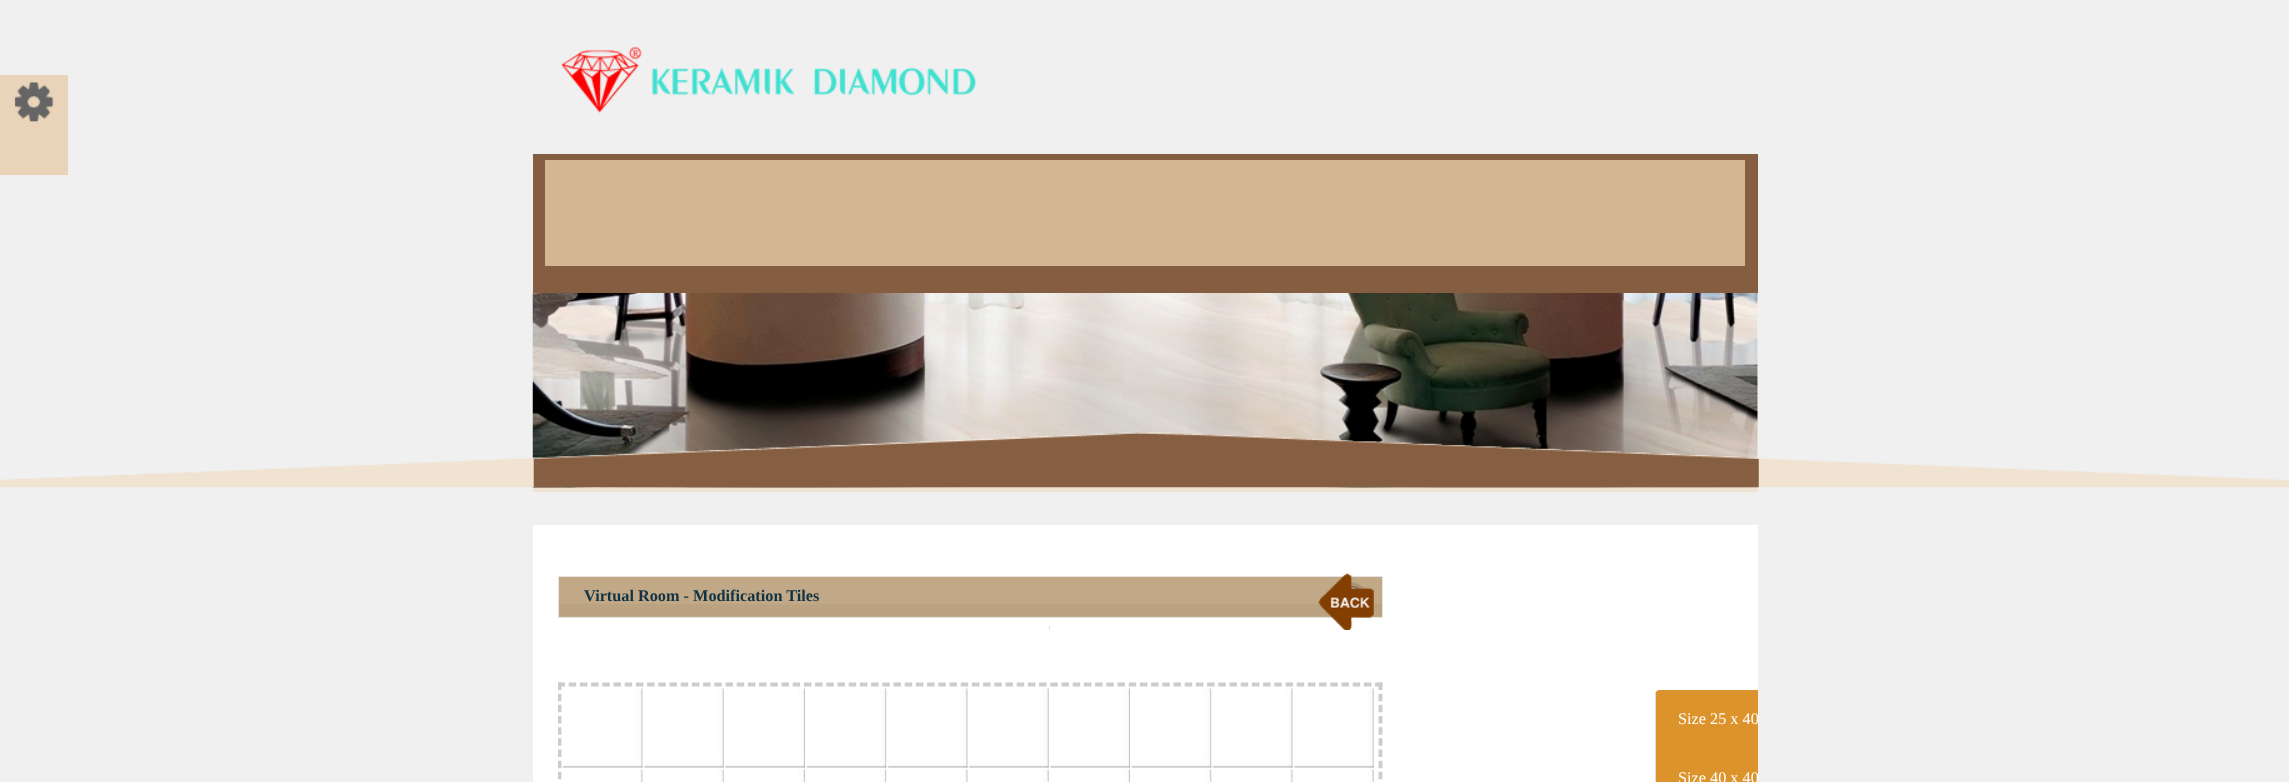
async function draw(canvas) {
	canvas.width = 2289;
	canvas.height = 782;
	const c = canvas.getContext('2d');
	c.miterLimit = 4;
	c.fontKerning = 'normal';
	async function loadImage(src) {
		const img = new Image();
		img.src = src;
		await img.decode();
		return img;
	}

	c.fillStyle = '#f0f0f0';
	c.fillRect(0, 0, 2289, 782);
	c.drawImage(await loadImage('img1.png'), 561, 46, 416, 67);
	c.fillStyle = '#f7f7f7';
	c.fillRect(533, 293, 1225, 195);
	c.drawImage(await loadImage('img2.png'), 532, 292, 1226, 196);
	c.fillStyle = '#855d41';
	c.fillRect(533, 154, 1225, 139);
	c.fillStyle = '#d2b792';
	c.fillRect(545, 160, 1200, 106);
	c.drawImage(await loadImage('img3.png'), 0, 432, 2289, 56);
	c.fillStyle = '#e9d4b9';
	c.fillRect(0, 75, 68, 100);
	c.drawImage(await loadImage('img4.png'), 14, 82, 40, 40);
	for (const [x, y, w, h, color] of [
		[533, 488, 1225, 4, '#efe2d1'],
		[533, 525, 1225, 257, '#fff'],
		[559, 577, 823, 40, '#c1a886'],
		[559, 604, 823, 12, '#bba382'],
	]) {
		c.fillStyle = color;
		c.fillRect(x, y, w, h);
	}
	c.strokeStyle = '#e3e3e3';
	c.strokeRect(558.5, 576.5, 824, 41);
	c.drawImage(await loadImage('img5.png'), 1351, 582, 13, 7);
	c.font = 'bold 16.25px Liberation Serif';
	c.fillStyle = '#134';
	c.fillText('Virtual Room - Modification Tiles', 584, 601);
	c.save();
	c.beginPath();
	c.rect(558, 525, 850, 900);
	c.clip();
	c.beginPath();
	c.moveTo(557.5, 684.5);
	c.lineTo(1382.5, 684.5);
	c.strokeStyle = '#ccc';
	c.lineWidth = 3.8;
	c.setLineDash([7.5, 3.7]);
	c.stroke();
	c.restore();
	c.beginPath();
	c.moveTo(1380.5, 682.5);
	c.lineTo(1380.5, 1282.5);
	c.strokeStyle = '#ccc';
	c.lineWidth = 3.8;
	c.setLineDash([7.5, 3.67]);
	c.stroke();
	c.save();
	c.beginPath();
	c.rect(558, 525, 850, 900);
	c.clip();
	c.beginPath();
	c.moveTo(559.5, 682.5);
	c.lineTo(559.5, 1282.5);
	c.stroke();
	c.restore();
	c.drawImage(await loadImage('img6.png'), 562, 687, 81, 81);
	c.drawImage(await loadImage('img7.png'), 643, 687, 81, 81);
	c.drawImage(await loadImage('img8.png'), 725, 687, 80, 81);
	c.drawImage(await loadImage('img9.png'), 806, 687, 81, 81);
	c.drawImage(await loadImage('img6.png'), 887, 687, 81, 81);
	c.drawImage(await loadImage('img7.png'), 968, 687, 81, 81);
	c.drawImage(await loadImage('img8.png'), 1050, 687, 80, 81);
	c.drawImage(await loadImage('img9.png'), 1131, 687, 81, 81);
	c.drawImage(await loadImage('img6.png'), 1212, 687, 81, 81);
	c.drawImage(await loadImage('img7.png'), 1293, 687, 81, 81);
	c.drawImage(await loadImage('img10.png'), 640, 769, 3, 13);
	c.drawImage(await loadImage('img11.png'), 716, 769, 8, 13);
	c.drawImage(await loadImage('img12.png'), 797, 768, 8, 14);
	c.drawImage(await loadImage('img13.png'), 878, 768, 9, 14);
	c.drawImage(await loadImage('img10.png'), 965, 769, 3, 13);
	c.drawImage(await loadImage('img11.png'), 1041, 769, 8, 13);
	c.drawImage(await loadImage('img12.png'), 1122, 768, 8, 14);
	c.drawImage(await loadImage('img13.png'), 1203, 768, 9, 14);
	c.drawImage(await loadImage('img10.png'), 1290, 769, 3, 13);
	c.drawImage(await loadImage('img11.png'), 1366, 769, 8, 13);
	c.fillStyle = '#ddd';
	c.fillRect(1049, 626, 1, 3);
	c.drawImage(await loadImage('img14.png'), 1318, 573, 56, 57);
	c.fillStyle = '#dc932b';
	c.beginPath();
	c.moveTo(1660, 690);
	c.lineTo(1758, 690);
	c.lineTo(1758, 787);
	c.lineTo(1660, 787);
	c.bezierCurveTo(1657, 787, 1655, 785, 1655, 782);
	c.lineTo(1655, 695);
	c.bezierCurveTo(1655, 692, 1657, 690, 1660, 690);
	c.closePath();
	c.fill();
	c.fillStyle = '#ddd';
	c.fillRect(1655, 693, 1, 89);
	c.font = '16.25px Liberation Serif';
	c.fillStyle = '#fff';
	c.fillText('Size 25 x 40', 1678, 724);
	c.fillText('Size 40 x 40', 1678, 783);
}

draw(document.querySelector('canvas'));
